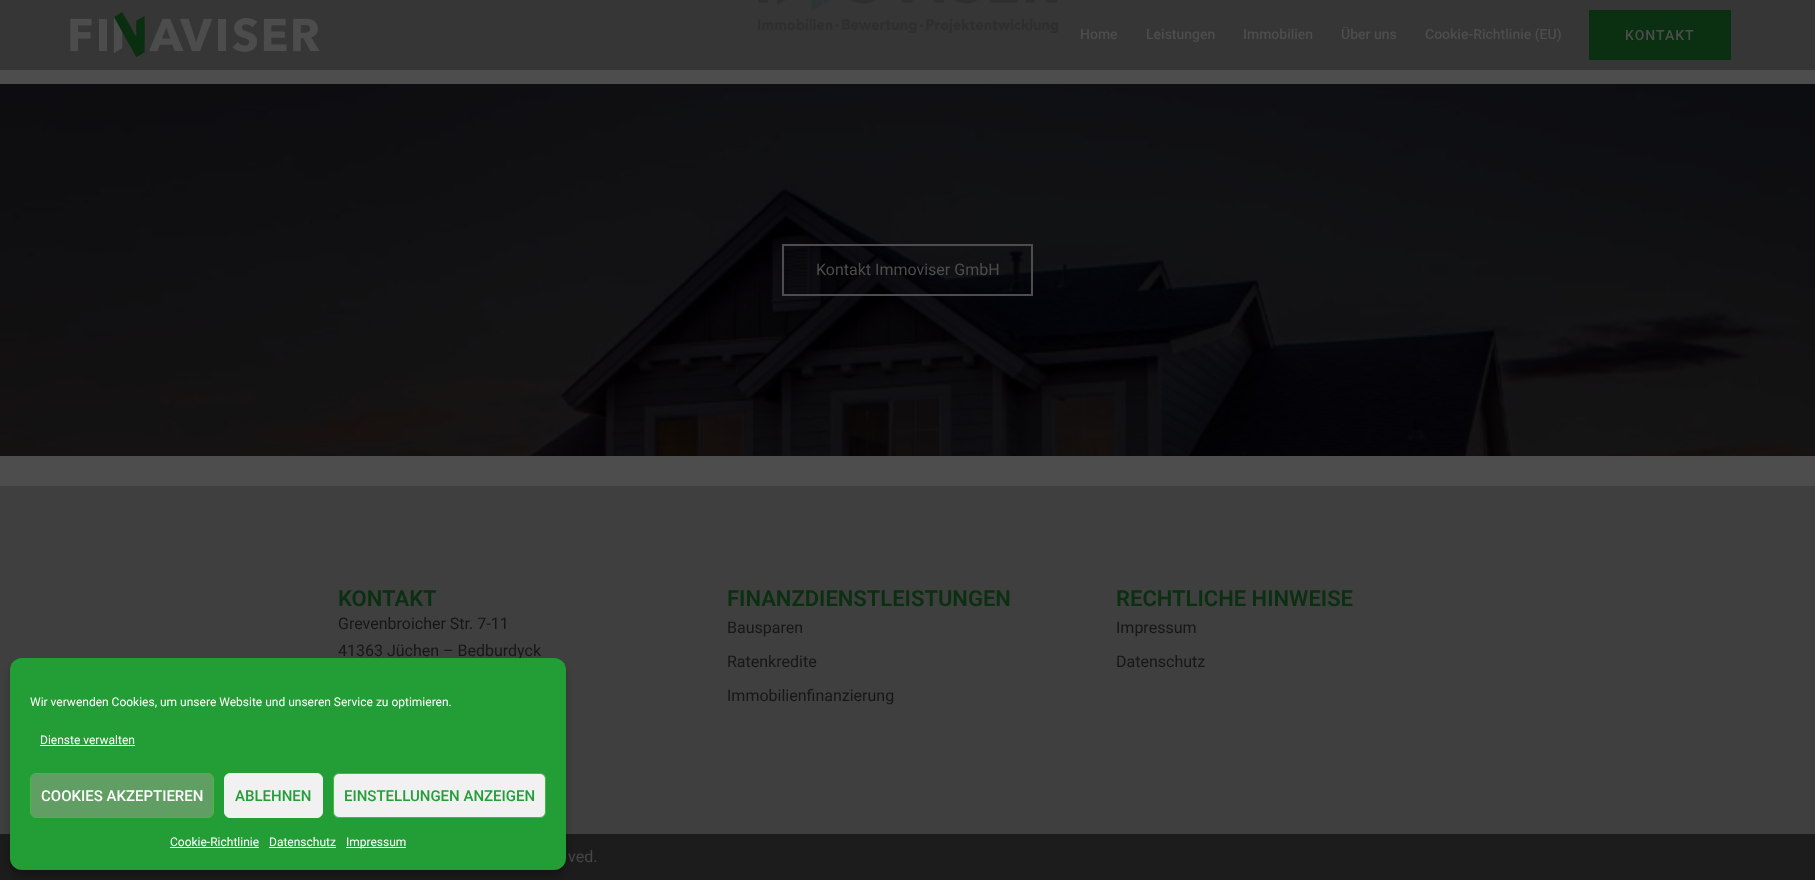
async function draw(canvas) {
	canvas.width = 1815;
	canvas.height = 880;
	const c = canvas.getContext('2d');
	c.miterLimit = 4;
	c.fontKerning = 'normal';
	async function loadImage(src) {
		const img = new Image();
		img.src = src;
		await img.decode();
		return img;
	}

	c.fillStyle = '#4d4d4d';
	c.fillRect(0, 0, 1815, 880);
	for (const [x, y, w, h, color] of [
		[0, 0, 1815, 70, '#363636'],
		[0, 486, 1815, 348, '#3f3f3f'],
		[0, 834, 1815, 46, '#1c1c1c'],
	]) {
		c.fillStyle = color;
		c.fillRect(x, y, w, h);
	}
	c.fillStyle = '#0000003b';
	c.filter = 'blur(3px)';
	c.beginPath();
	c.roundRect(10, 664, 556, 212, 12);
	c.fill();
	c.filter = 'none';
	c.font = '16px Roboto';
	c.fillStyle = '#171717';
	c.fillText('41363 Jüchen – Bedburdyck', 338, 656);
	c.fillStyle = '#239e37';
	c.beginPath();
	c.roundRect(10, 658, 556, 212, 12);
	c.fill();
	c.font = '12px Roboto';
	c.fillStyle = '#fff';
	c.fillText('Wir verwenden Cookies, um unsere Website und unseren Service zu optimieren.', 30, 706);
	c.fillText('Dienste verwalten', 40, 744);
	c.fillRect(40, 745, 95, 1);
	c.fillStyle = '#609e63';
	c.beginPath();
	c.roundRect(30.5, 773.5, 183, 44, 5.5);
	c.fill();
	c.strokeStyle = '#45ba3d';
	c.stroke();
	c.font = '500 15px Roboto';
	c.fillStyle = '#fff';
	c.fillText('COOKIES AKZEPTIEREN', 41, 801);
	c.fillStyle = '#f1f1f1';
	c.beginPath();
	c.roundRect(224.5, 773.5, 98, 44, 5.5);
	c.fill();
	c.strokeStyle = '#f1f1f1';
	c.stroke();
	c.fillStyle = '#239e37';
	c.fillText('ABLEHNEN', 235, 801);
	c.fillStyle = '#f1f1f1';
	c.beginPath();
	c.roundRect(333.5, 773.5, 212, 44, 5.5);
	c.fill();
	c.strokeStyle = '#45ba3d';
	c.stroke();
	c.fillStyle = '#239e37';
	c.fillText('EINSTELLUNGEN ANZEIGEN', 344, 801);
	c.font = '12px Roboto';
	c.fillStyle = '#fff';
	c.fillText('Cookie-Richtlinie', 170, 846);
	c.fillRect(170, 847, 89, 1);
	c.fillText('Datenschutz', 269, 846);
	c.fillRect(269, 847, 67, 1);
	c.fillRect(346, 847, 60, 1);
	c.fillText('Impressum', 346, 846);
	c.drawImage(await loadImage('img1.png'), 70, 12, 250, 45);
	c.font = '500 14px Roboto';
	c.fillStyle = '#4d4d4d';
	for (const [text, x, y] of [
		['Home', 1080, 39],
		['Leistungen', 1146, 39],
		['Immobilien', 1243, 39],
		['Über uns', 1341, 39],
		['Cookie-Richtlinie (EU)', 1425, 39],
	]) {
		c.fillText(text, x, y);
	}
	c.fillStyle = '#0b2f11';
	c.fillRect(1589, 10, 142, 50);
	c.letterSpacing = '1px';
	c.fillStyle = '#4d4d4d';
	c.fillText('KONTAKT', 1625, 40);
	c.drawImage(await loadImage('img2.png'), 758, 0, 300, 33);
	c.drawImage(await loadImage('img3.png'), 0, 84, 1815, 372);
	c.strokeStyle = '#4d4d4d';
	c.lineWidth = 2;
	c.strokeRect(783, 245, 249, 50);
	c.letterSpacing = '0px';
	c.font = '16px Roboto';
	c.fillText('Kontakt Immoviser GmbH', 816, 275);
	c.font = '600 22px Roboto';
	c.fillStyle = '#0b2f11';
	c.fillText('KONTAKT', 338, 606);
	c.font = '16px Roboto';
	c.fillStyle = '#171717';
	c.fillText('Grevenbroicher Str. 7-11', 338, 629);
	c.font = '600 22px Roboto';
	c.fillStyle = '#0b2f11';
	c.fillText('FINANZDIENSTLEISTUNGEN', 727, 606);
	c.font = '16px Roboto';
	c.fillStyle = '#171717';
	for (const [text, x, y] of [
		['Bausparen', 727, 633],
		['Ratenkredite', 727, 667],
		['Immobilienfinanzierung', 727, 701],
	]) {
		c.fillText(text, x, y);
	}
	c.font = '600 22px Roboto';
	c.fillStyle = '#0b2f11';
	c.fillText('RECHTLICHE HINWEISE', 1116, 606);
	c.font = '16px Roboto';
	c.fillStyle = '#171717';
	c.fillText('Impressum', 1116, 633);
	c.fillText('Datenschutz', 1116, 667);
	c.fillStyle = '#474747';
	c.fillText('ved.', 568, 862);
}

draw(document.querySelector('canvas'));
